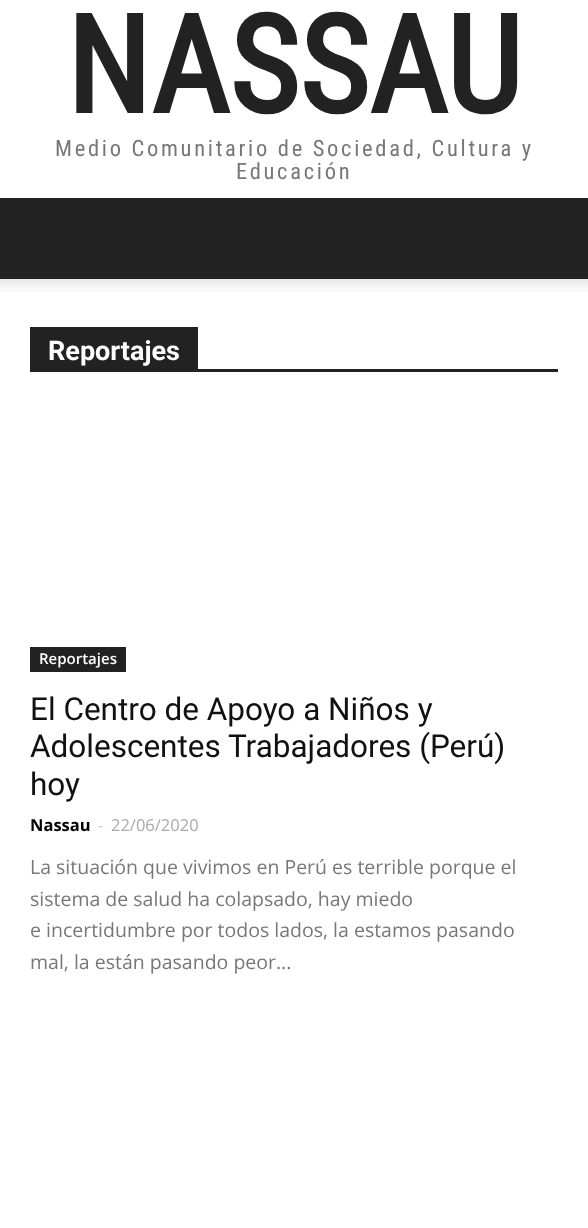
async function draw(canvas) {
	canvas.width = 588;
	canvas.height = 1228;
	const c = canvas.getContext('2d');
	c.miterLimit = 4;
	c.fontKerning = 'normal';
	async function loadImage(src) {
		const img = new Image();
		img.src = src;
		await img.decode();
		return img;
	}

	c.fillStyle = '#fff';
	c.fillRect(0, 0, 588, 1228);
	c.font = 'bold 135px Roboto Condensed';
	c.fillStyle = '#222';
	c.fillText('NASSAU', 66, 113);
	c.letterSpacing = '2.7px';
	c.font = '22.5px Roboto Condensed';
	c.fillStyle = '#777';
	c.fillText('Medio Comunitario de Sociedad, Cultura y', 55, 156);
	c.fillText('Educación', 236, 179);
	c.fillStyle = '#222';
	c.fillRect(0, 198, 588, 81);
	c.drawImage(await loadImage('img1.png'), 0, 279, 588, 13);
	c.fillRect(30, 369, 528, 3);
	c.fillRect(30, 327, 168, 42);
	c.letterSpacing = '0px';
	c.font = 'bold 27px Roboto';
	c.fillStyle = '#fff';
	c.fillText('Reportajes', 48, 360);
	c.fillStyle = '#222';
	c.fillRect(30, 647, 96, 25);
	c.font = '600 15px Open Sans';
	c.fillStyle = '#fff';
	c.fillText('Reportajes', 39, 664);
	c.font = '31.5px Roboto';
	c.fillStyle = '#111';
	for (const [text, x, y] of [
		['El Centro de Apoyo a Niños y', 30, 720],
		['Adolescentes Trabajadores (Perú)', 30, 757],
		['hoy', 30, 795],
	]) {
		c.fillText(text, x, y);
	}
	c.font = 'bold 16.5px Open Sans';
	c.fillStyle = '#000';
	c.fillText('Nassau', 30, 831);
	c.font = '16.5px Open Sans';
	c.fillStyle = '#ccc';
	c.fillText('-', 98, 831);
	c.fillStyle = '#aaa';
	c.fillText('22/06/2020', 111, 831);
	c.font = '19.5px Open Sans';
	c.fillStyle = '#777';
	for (const [text, x, y] of [
		['La situación que vivimos en Perú es terrible porque el', 30, 874],
		['sistema de salud ha colapsado, hay miedo', 30, 906],
		['e incertidumbre por todos lados, la estamos pasando', 30, 937],
		['mal, la están pasando peor...', 30, 969],
	]) {
		c.fillText(text, x, y);
	}
}

draw(document.querySelector('canvas'));
